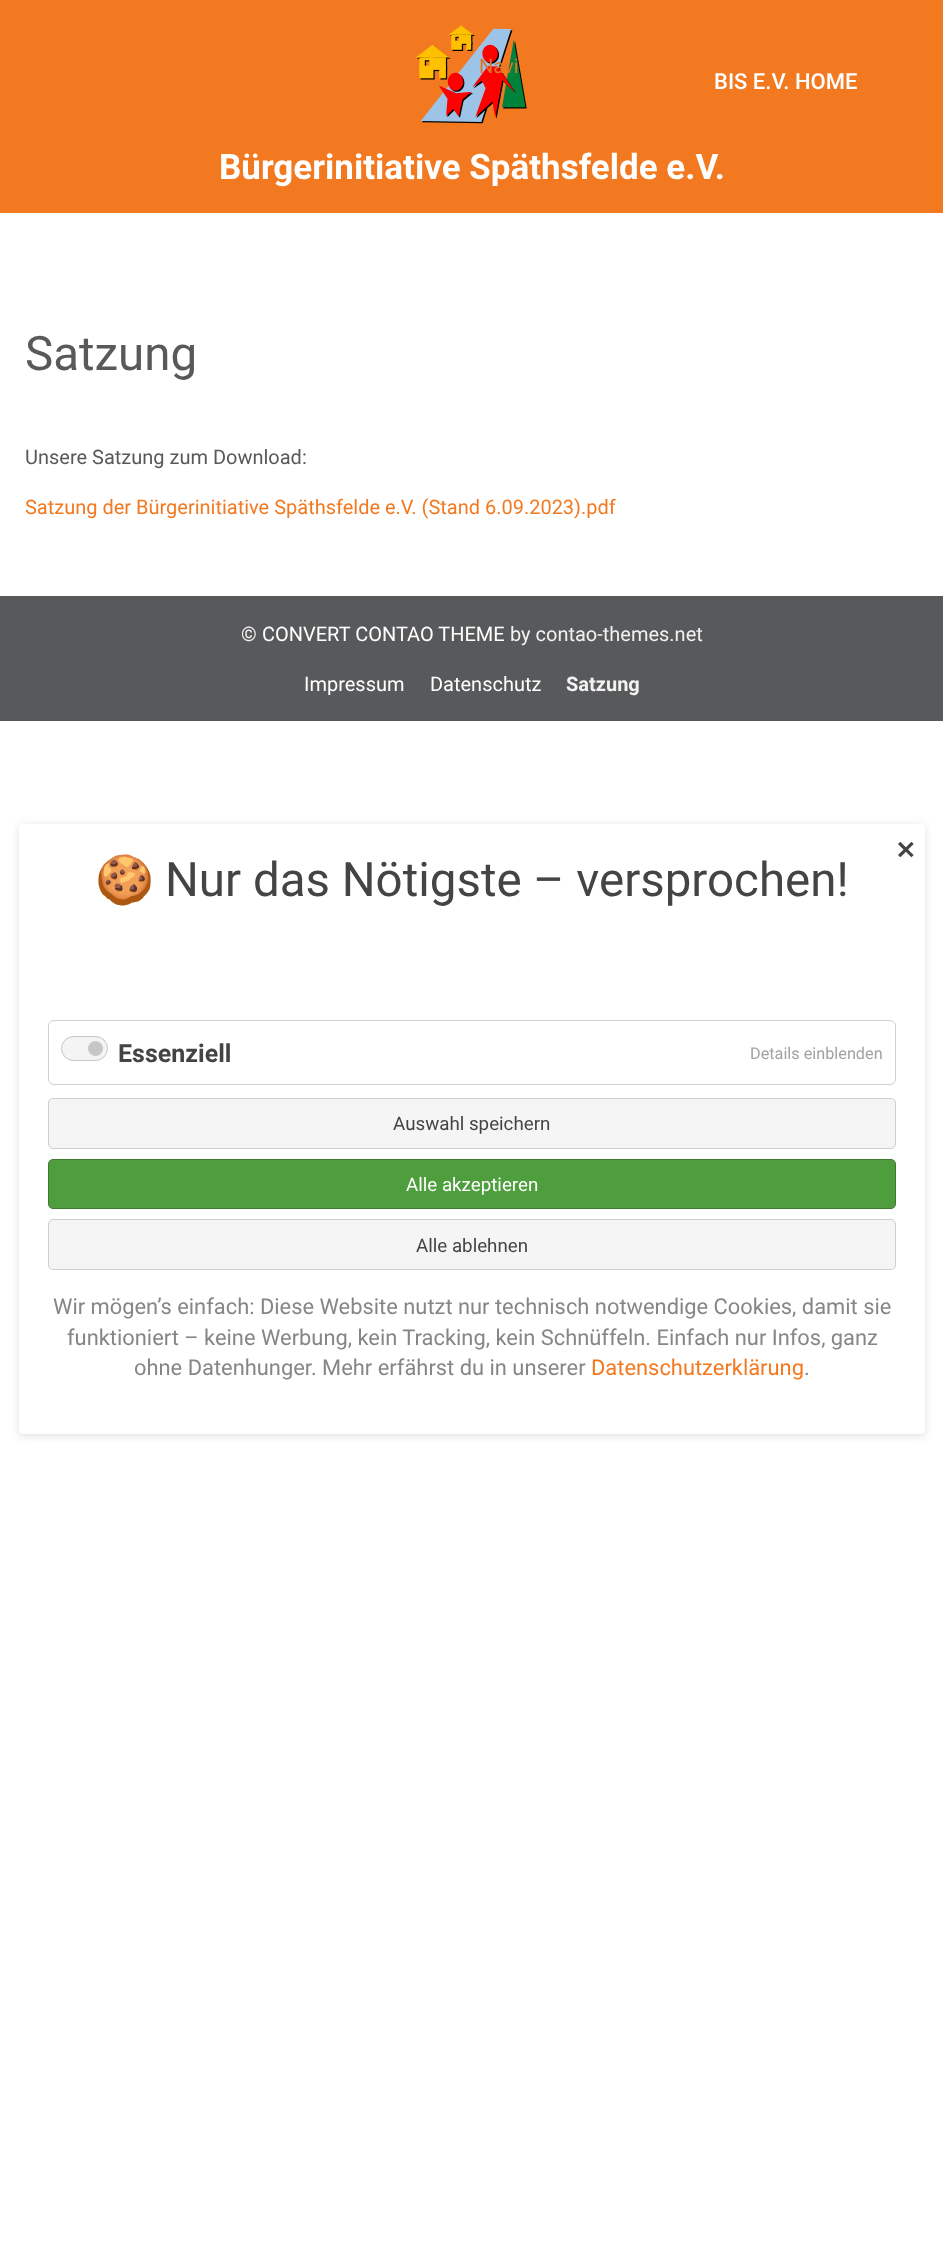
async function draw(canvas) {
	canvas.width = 943;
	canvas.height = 2257;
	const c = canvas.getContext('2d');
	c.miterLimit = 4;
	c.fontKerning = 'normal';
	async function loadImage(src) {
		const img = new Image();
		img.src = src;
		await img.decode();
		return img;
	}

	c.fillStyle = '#fff';
	c.fillRect(0, 0, 943, 2257);
	c.fillStyle = '#f37920';
	c.fillRect(0, 0, 943, 213);
	c.drawImage(await loadImage('img1.png'), 416, 25, 111, 99);
	c.font = '20px Roboto';
	c.fillStyle = '#e17629';
	c.fillText('Navi', 479, 73);
	c.font = '500 22px Roboto';
	c.fillStyle = '#fff';
	c.fillText('BIS E.V. HOME', 714, 89);
	c.font = 'bold 35px Roboto';
	c.fillText('Bürgerinitiative Späthsfelde e.V.', 219, 179);
	c.font = '47.5px Roboto';
	c.fillStyle = '#58595b';
	c.fillText('Satzung', 25, 370);
	c.font = '20px Roboto';
	c.fillText('Unsere Satzung zum Download:', 25, 464);
	c.fillStyle = '#f37920';
	c.fillText('Satzung der Bürgerinitiative Späthsfelde e.V. (Stand 6.09.2023).pdf', 25, 514);
	c.fillStyle = '#58595b';
	c.fillRect(0, 596, 943, 125);
	c.fillStyle = '#f2f2f2';
	c.fillText('©', 241, 641);
	c.fillStyle = '#fff';
	c.fillText('CONVERT CONTAO THEME', 262, 641);
	c.fillStyle = '#f2f2f2';
	c.fillText('by contao-themes.net', 510, 641);
	c.fillStyle = '#fff';
	c.fillText('Impressum', 304, 691);
	c.fillText('Datenschutz', 430, 691);
	c.font = 'bold 20px Roboto';
	c.fillStyle = '#f2f2f2';
	c.fillText('Satzung', 566, 691);
	c.fillStyle = '#63636333';
	c.filter = 'blur(5px)';
	c.beginPath();
	c.roundRect(19, 826, 906, 610, 4);
	c.fill();
	c.filter = 'none';
	c.fillStyle = '#fff';
	c.beginPath();
	c.roundRect(19, 824, 906, 610, 4);
	c.fill();
	c.font = 'bold 25px DejaVu Sans';
	c.fillStyle = '#444';
	c.fillText('✕', 895, 859);
	c.font = '47.5px Noto Color Emoji';
	c.fillText('🍪', 95, 896);
	c.font = '47.5px Roboto';
	c.fillText('Nur das Nötigste – versprochen!', 165, 896);
	c.beginPath();
	c.roundRect(48.5, 1020.5, 847, 64, 5.5);
	c.strokeStyle = '#d0d0d0';
	c.stroke();
	c.fillStyle = '#f4f4f4';
	c.beginPath();
	c.roundRect(61.5, 1036.5, 46, 24, 12);
	c.fill();
	c.strokeStyle = '#c8c7c5';
	c.stroke();
	c.fillStyle = '#c8c7c5';
	c.beginPath();
	c.arc(95.5, 1048.5, 7.5, 0, 2 * Math.PI);
	c.fill();
	c.font = 'bold 25px Roboto';
	c.fillStyle = '#444';
	c.fillText('Essenziell', 118, 1062);
	c.font = '16.25px Roboto';
	c.fillStyle = '#a2a2a2';
	c.fillText('Details einblenden', 750, 1059);
	c.fillStyle = '#f5f5f5';
	c.beginPath();
	c.roundRect(48.5, 1098.5, 847, 50, 4.5);
	c.fill();
	c.strokeStyle = '#cfcfcf';
	c.stroke();
	c.font = '18.75px Roboto';
	c.fillStyle = '#444';
	c.fillText('Auswahl speichern', 393, 1130);
	c.fillStyle = '#4e9e3e';
	c.beginPath();
	c.roundRect(48.5, 1159.5, 847, 49, 4.5);
	c.fill();
	c.strokeStyle = '#3e7830';
	c.stroke();
	c.fillStyle = '#fff';
	c.fillText('Alle akzeptieren', 406, 1191);
	c.fillStyle = '#f5f5f5';
	c.beginPath();
	c.roundRect(48.5, 1219.5, 847, 50, 4.5);
	c.fill();
	c.strokeStyle = '#cfcfcf';
	c.stroke();
	c.fillStyle = '#444';
	c.fillText('Alle ablehnen', 416, 1252);
	c.font = '21.9px Roboto';
	c.fillStyle = '#868686';
	for (const [text, x, y] of [
		['Wir mögen’s einfach: Diese Website nutzt nur technisch notwendige Cookies, damit sie', 53, 1314],
		['funktioniert – keine Werbung, kein Tracking, kein Schnüffeln. Einfach nur Infos, ganz', 67, 1345],
		['ohne Datenhunger. Mehr erfährst du in unserer', 134, 1375],
	]) {
		c.fillText(text, x, y);
	}
	c.fillStyle = '#f37920';
	c.fillText('Datenschutzerklärung', 591, 1375);
	c.fillStyle = '#868686';
	c.fillText('.', 804, 1375);
}

draw(document.querySelector('canvas'));
